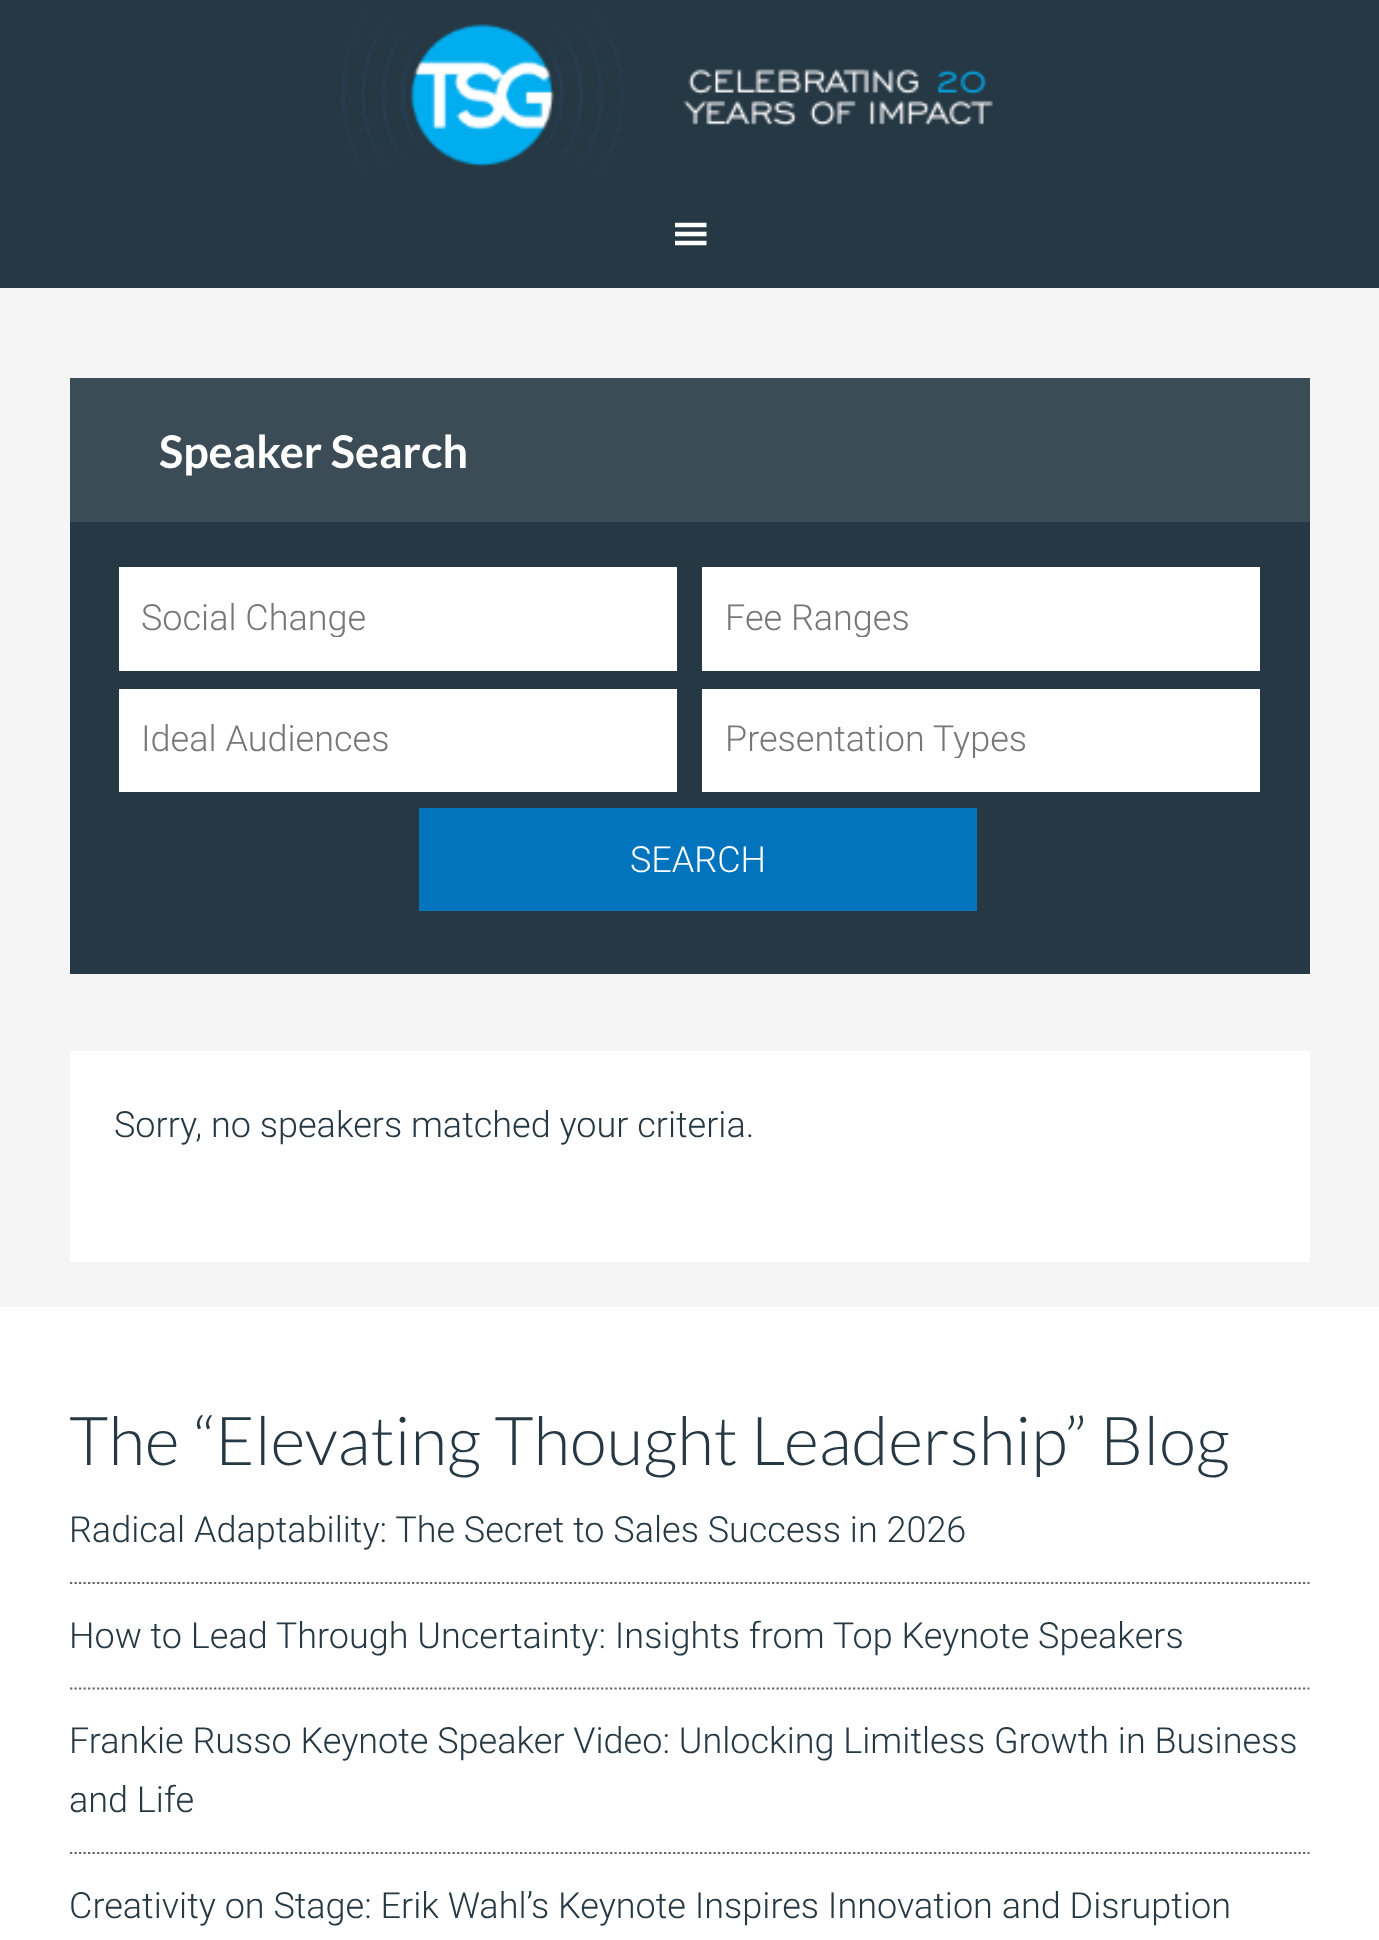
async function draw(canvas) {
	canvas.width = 1379;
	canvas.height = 1940;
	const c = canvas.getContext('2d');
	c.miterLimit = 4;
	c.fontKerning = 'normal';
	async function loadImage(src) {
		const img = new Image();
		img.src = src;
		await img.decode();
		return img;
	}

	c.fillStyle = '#fff';
	c.fillRect(0, 0, 1379, 1940);
	c.fillStyle = '#263844';
	c.fillRect(0, 0, 1379, 288);
	c.drawImage(await loadImage('img1.png'), 340, 5, 653, 175);
	c.drawImage(await loadImage('img2.png'), 675, 222, 32, 24);
	for (const [x, y, w, h, color] of [
		[0, 288, 1379, 1019, '#f5f5f5'],
		[70, 522, 1240, 452, '#263844'],
		[70, 378, 1240, 144, '#3c4c57'],
	]) {
		c.fillStyle = color;
		c.fillRect(x, y, w, h);
	}
	c.font = 'bold 45px Lato';
	c.fillStyle = '#fff';
	c.fillText('Speaker Search', 159, 468);
	c.fillRect(119, 567, 558, 104);
	c.save();
	c.beginPath();
	c.rect(142, 601, 513, 36);
	c.clip();
	c.font = '300 36px Roboto';
	c.fillStyle = '#777';
	c.fillText('Social Change', 141, 630);
	c.restore();
	c.fillRect(702, 567, 558, 104);
	c.save();
	c.beginPath();
	c.rect(725, 601, 513, 36);
	c.clip();
	c.font = '300 36px Roboto';
	c.fillStyle = '#777';
	c.fillText('Fee Ranges', 725, 630);
	c.restore();
	c.fillRect(119, 689, 558, 103);
	c.font = '300 36px Roboto';
	c.fillStyle = '#777';
	c.fillText('Ideal Audiences', 141, 751);
	c.fillStyle = '#fff';
	c.fillRect(702, 689, 558, 103);
	c.save();
	c.beginPath();
	c.rect(725, 722, 513, 36);
	c.clip();
	c.fillStyle = '#777';
	c.fillText('Presentation Types', 725, 751);
	c.restore();
	c.fillStyle = '#0274be';
	c.fillRect(419, 808, 558, 103);
	c.fillStyle = '#fff';
	c.fillText('SEARCH', 630, 872);
	c.fillRect(70, 1051, 1240, 211);
	c.fillStyle = '#263844';
	c.fillText('Sorry, no speakers matched your criteria.', 114, 1137);
	c.font = '300 67.5px Lato';
	c.fillText('The “Elevating Thought Leadership” Blog', 69, 1465);
	c.beginPath();
	c.moveTo(70, 1583);
	c.lineTo(1309.5, 1583);
	c.strokeStyle = '#666';
	c.lineWidth = 2.2;
	c.setLineDash([2.25, 2.25]);
	c.stroke();
	c.font = '300 36px Roboto';
	c.fillText('Radical Adaptability: The Secret to Sales Success in 2026', 69, 1542);
	c.beginPath();
	c.moveTo(70, 1688.5);
	c.lineTo(1309.5, 1688.5);
	c.stroke();
	c.fillText('How to Lead Through Uncertainty: Insights from Top Keynote Speakers', 69, 1648);
	c.beginPath();
	c.moveTo(70, 1853);
	c.lineTo(1309.5, 1853);
	c.stroke();
	for (const [text, x, y] of [
		['Frankie Russo Keynote Speaker Video: Unlocking Limitless Growth in Business', 69, 1753],
		['and Life', 69, 1812],
		['Creativity on Stage: Erik Wahl’s Keynote Inspires Innovation and Disruption', 69, 1918],
	]) {
		c.fillText(text, x, y);
	}
}

draw(document.querySelector('canvas'));
